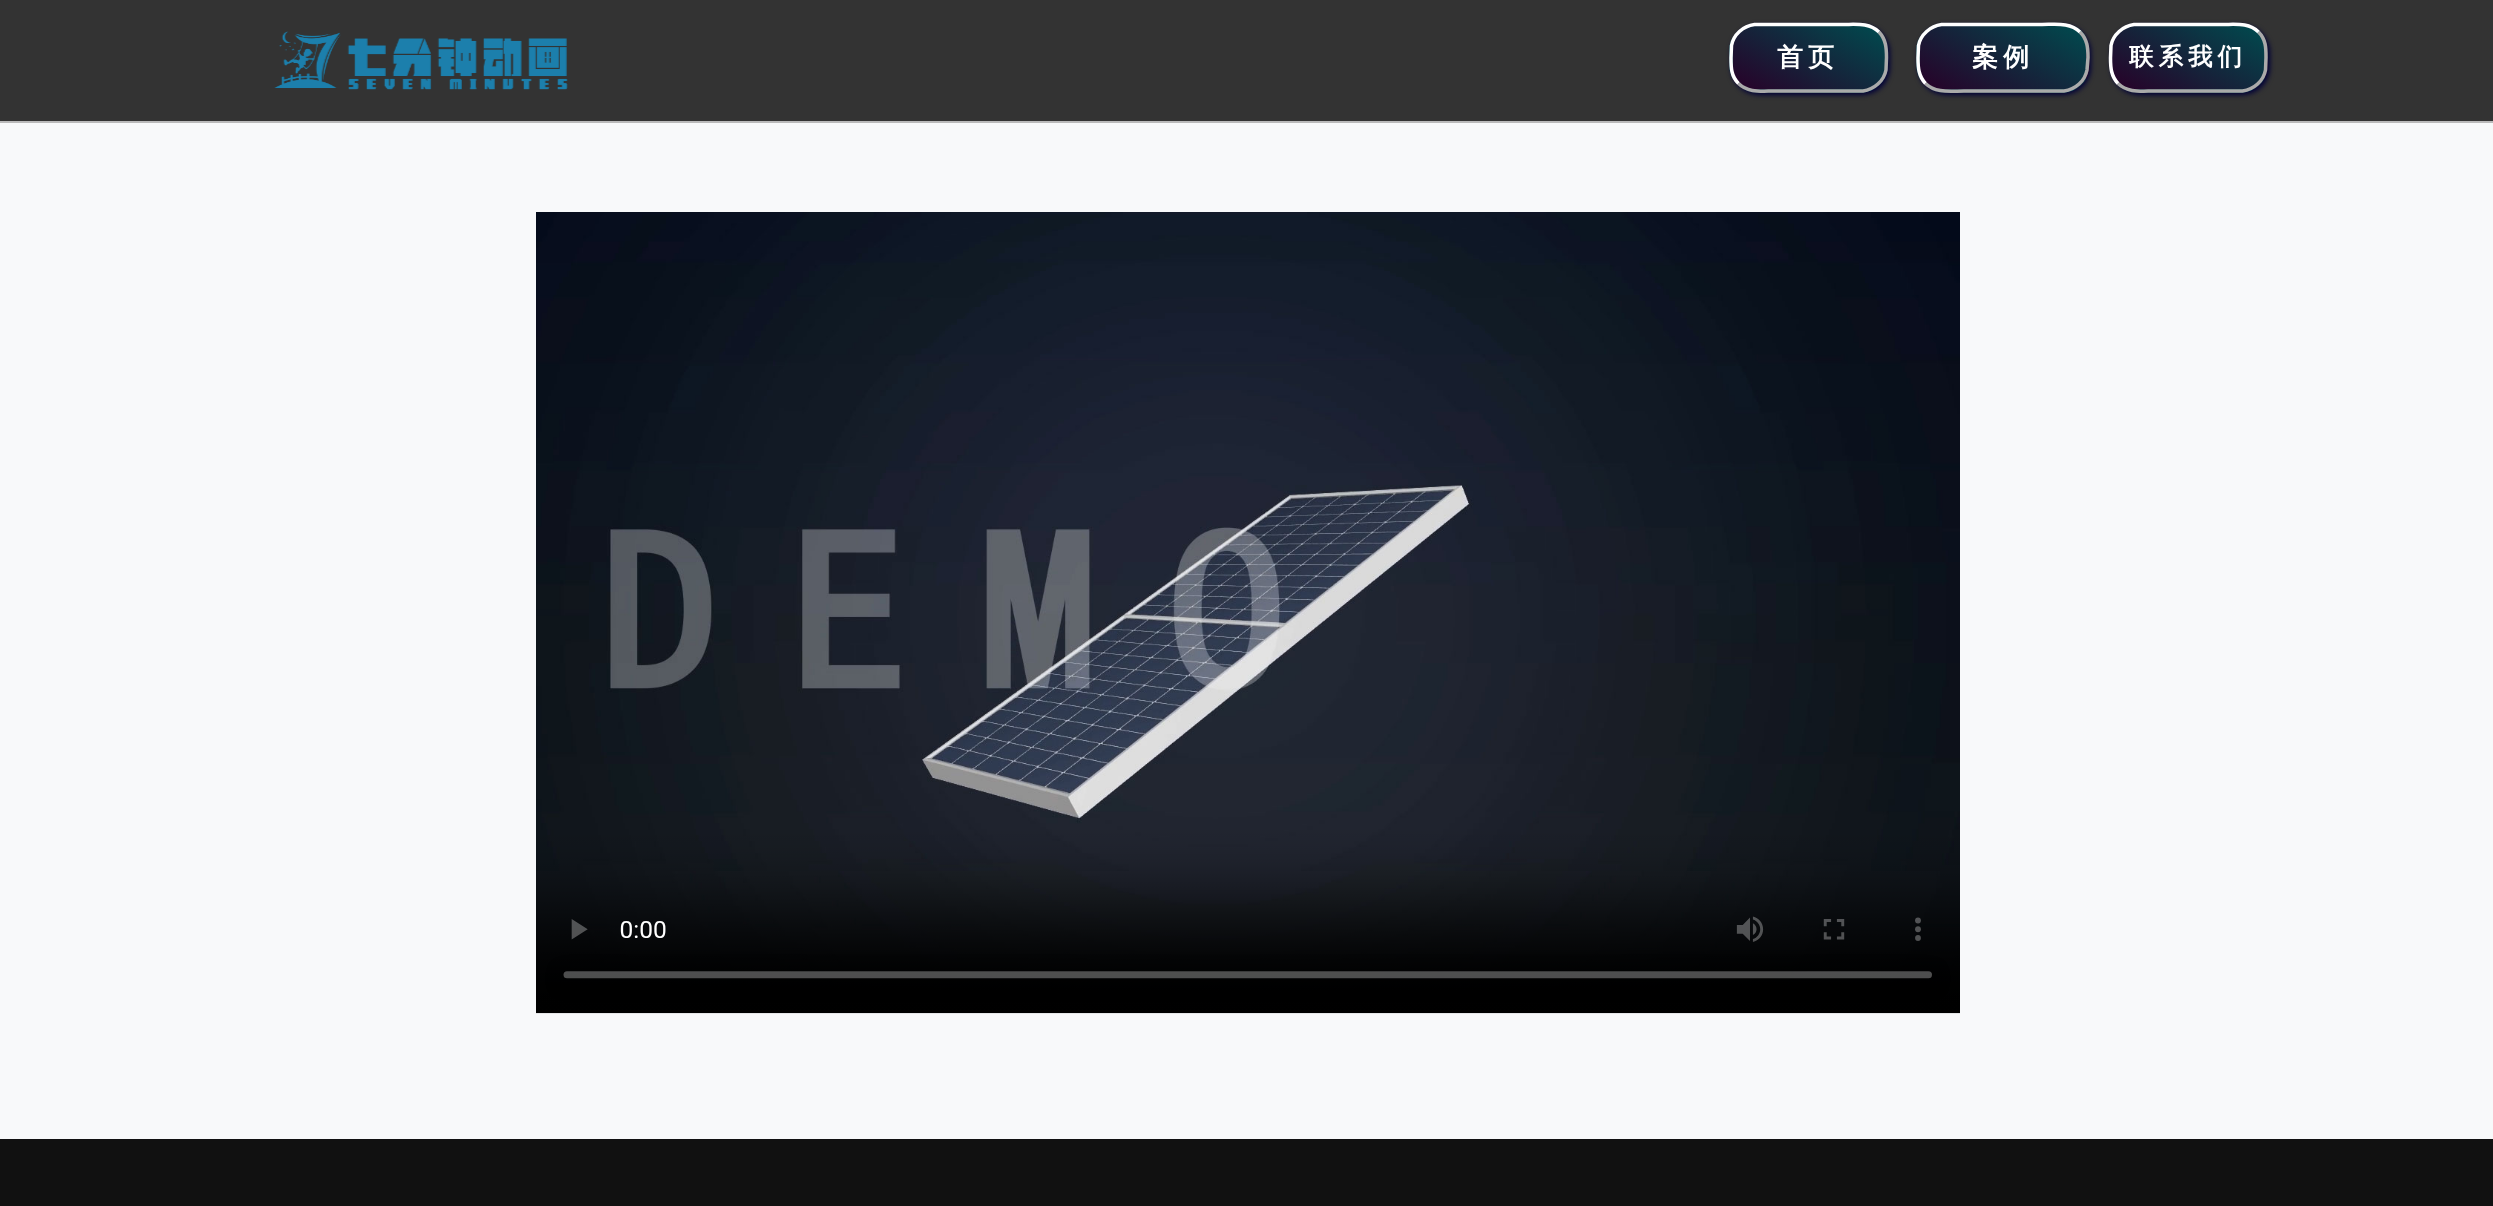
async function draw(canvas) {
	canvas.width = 2493;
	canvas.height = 1206;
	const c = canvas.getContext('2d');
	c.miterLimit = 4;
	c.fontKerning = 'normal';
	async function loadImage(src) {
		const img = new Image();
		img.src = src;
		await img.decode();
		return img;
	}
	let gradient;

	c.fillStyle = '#f8f9fa';
	c.fillRect(0, 0, 2493, 1206);
	c.fillStyle = '#333';
	c.fillRect(0, 0, 2493, 121);
	c.drawImage(await loadImage('img1.png'), 274, 31, 294, 59);
	c.fillStyle = '#000038';
	c.filter = 'blur(2.5px)';
	c.beginPath();
	c.roundRect(1731, 25, 159, 70, 28);
	c.fill();
	c.filter = 'none';
	c.save();
	c.beginPath();
	c.roundRect(1729, 23, 159, 70, 28);
	c.clip();
	gradient = c.createLinearGradient(1624, 114, 1689, 1.2);
	gradient.addColorStop(0, '#280028');
	gradient.addColorStop(1, '#004b4f');
	c.fillStyle = gradient;
	c.fillRect(1729, 36, 4, 44);
	gradient = c.createLinearGradient(1776, 114, 1841, 1.2);
	gradient.addColorStop(0, '#280028');
	gradient.addColorStop(1, '#004b4f');
	c.fillStyle = gradient;
	c.fillRect(1733, 26, 152, 63);
	gradient = c.createLinearGradient(1776, 177, 1841, 64);
	gradient.addColorStop(0, '#280028');
	gradient.addColorStop(1, '#004b4f');
	c.fillStyle = gradient;
	c.fillRect(1742, 89, 133, 4);
	c.restore();
	c.beginPath();
	c.moveTo(1879, 32);
	c.bezierCurveTo(1886, 39.5, 1886.5, 48, 1886.5, 57.5);
	c.lineTo(1886, 70);
	c.bezierCurveTo(1884, 81, 1874, 89.5, 1863, 91);
	c.lineTo(1774, 91);
	c.bezierCurveTo(1761.5, 91, 1748, 93, 1738.5, 83.5);
	c.strokeStyle = '#aaa';
	c.lineWidth = 3.5;
	c.stroke();
	c.beginPath();
	c.moveTo(1738.5, 83.5);
	c.bezierCurveTo(1731, 76, 1731, 67.5, 1731, 58);
	c.lineTo(1731.5, 45.5);
	c.bezierCurveTo(1733.5, 34.5, 1743, 26, 1754.5, 24.5);
	c.lineTo(1843, 24.5);
	c.bezierCurveTo(1856, 24.5, 1869, 22.5, 1879, 32);
	c.strokeStyle = '#fff';
	c.stroke();
	c.letterSpacing = '5px';
	c.font = 'bold 26px WenQuanYi Zen Hei';
	c.fillStyle = '#fff';
	c.fillText('首页', 1777, 66);
	c.fillStyle = '#000038';
	c.filter = 'blur(2.5px)';
	c.beginPath();
	c.roundRect(1918, 25, 173, 70, 28);
	c.fill();
	c.filter = 'none';
	c.save();
	c.beginPath();
	c.roundRect(1916, 23, 174, 70, 28);
	c.clip();
	gradient = c.createLinearGradient(1802, 117, 1871, -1.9);
	gradient.addColorStop(0, '#280028');
	gradient.addColorStop(1, '#004b4f');
	c.fillStyle = gradient;
	c.fillRect(1916, 36, 4, 44);
	gradient = c.createLinearGradient(1968, 117, 2037, -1.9);
	gradient.addColorStop(0, '#280028');
	gradient.addColorStop(1, '#004b4f');
	c.fillStyle = gradient;
	c.fillRect(1920, 26, 166, 63);
	gradient = c.createLinearGradient(2135, 117, 2204, -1.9);
	gradient.addColorStop(0, '#280028');
	gradient.addColorStop(1, '#004b4f');
	c.fillStyle = gradient;
	c.fillRect(2086, 36, 4, 44);
	gradient = c.createLinearGradient(1968, 180, 2037, 61);
	gradient.addColorStop(0, '#280028');
	gradient.addColorStop(1, '#004b4f');
	c.fillStyle = gradient;
	c.fillRect(1929, 89, 148, 4);
	c.restore();
	c.beginPath();
	c.moveTo(2080, 32);
	c.bezierCurveTo(2087.5, 39.5, 2088, 48, 2088, 57.5);
	c.lineTo(2087, 70);
	c.bezierCurveTo(2085, 81, 2075.5, 89.5, 2064, 91);
	c.lineTo(1964, 91);
	c.bezierCurveTo(1950.5, 91, 1936, 93.5, 1925.5, 83.5);
	c.strokeStyle = '#aaa';
	c.stroke();
	c.beginPath();
	c.moveTo(1925.5, 83.5);
	c.bezierCurveTo(1918.5, 76, 1918, 67.5, 1918, 58);
	c.lineTo(1918.5, 45.5);
	c.bezierCurveTo(1920.5, 34.5, 1930.5, 26, 1941.5, 24.5);
	c.lineTo(2042, 24.5);
	c.bezierCurveTo(2055, 24.5, 2070, 22, 2080, 32);
	c.strokeStyle = '#fff';
	c.stroke();
	c.fillStyle = '#fff';
	c.fillText('案例', 1972, 66);
	c.fillStyle = '#000038';
	c.filter = 'blur(2.5px)';
	c.beginPath();
	c.roundRect(2111, 25, 159, 70, 28);
	c.fill();
	c.filter = 'none';
	c.save();
	c.beginPath();
	c.roundRect(2109, 23, 159, 70, 28);
	c.clip();
	gradient = c.createLinearGradient(2156, 114, 2221, 1.2);
	gradient.addColorStop(0, '#280028');
	gradient.addColorStop(1, '#004b4f');
	c.fillStyle = gradient;
	c.fillRect(2112, 26, 153, 63);
	gradient = c.createLinearGradient(2308, 114, 2373, 1.2);
	gradient.addColorStop(0, '#280028');
	gradient.addColorStop(1, '#004b4f');
	c.fillStyle = gradient;
	c.fillRect(2265, 38, 3, 40);
	gradient = c.createLinearGradient(2156, 177, 2221, 64);
	gradient.addColorStop(0, '#280028');
	gradient.addColorStop(1, '#004b4f');
	c.fillStyle = gradient;
	c.fillRect(2122, 89, 133, 4);
	c.restore();
	c.beginPath();
	c.moveTo(2258.5, 32);
	c.bezierCurveTo(2266, 39.5, 2266, 48, 2266, 57.5);
	c.lineTo(2265.5, 70);
	c.bezierCurveTo(2263.5, 81, 2254, 89.5, 2242.5, 91);
	c.lineTo(2154, 91);
	c.bezierCurveTo(2141, 91, 2128, 93, 2118, 83.5);
	c.strokeStyle = '#aaa';
	c.stroke();
	c.beginPath();
	c.moveTo(2118, 83.5);
	c.bezierCurveTo(2111, 76, 2110.5, 67.5, 2110.5, 58);
	c.lineTo(2111, 45.5);
	c.bezierCurveTo(2113, 34.5, 2123, 26, 2134, 24.5);
	c.lineTo(2223, 24.5);
	c.bezierCurveTo(2235.5, 24.5, 2249, 22.5, 2258.5, 32);
	c.strokeStyle = '#fff';
	c.stroke();
	c.font = 'bold 24.5px WenQuanYi Zen Hei';
	c.fillStyle = '#fff';
	c.fillText('联系我们', 2129, 65);
	c.fillStyle = '#bababa';
	c.fillRect(0, 121, 2493, 2);
	c.drawImage(await loadImage('img2.png'), 536, 212, 1424, 802);
	c.fillStyle = '#111';
	c.fillRect(0, 1139, 2493, 67);
}

draw(document.querySelector('canvas'));
